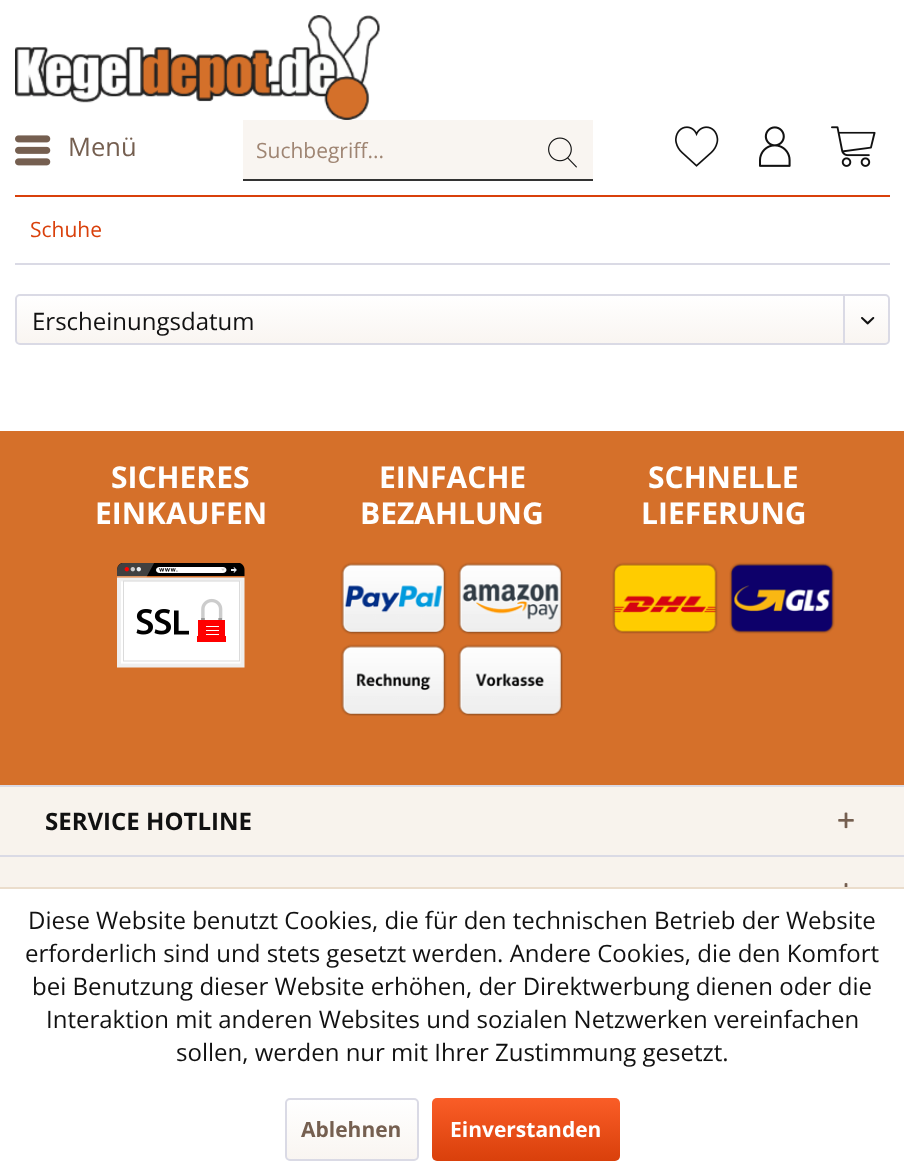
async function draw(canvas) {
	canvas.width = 904;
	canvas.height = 1175;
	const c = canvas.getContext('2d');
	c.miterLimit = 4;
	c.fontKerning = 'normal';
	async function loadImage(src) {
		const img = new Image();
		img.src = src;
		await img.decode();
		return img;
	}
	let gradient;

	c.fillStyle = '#fff';
	c.fillRect(0, 0, 904, 1175);
	c.fillStyle = '#d9400b';
	c.fillRect(15, 195, 875, 2);
	c.drawImage(await loadImage('img1.png'), 15, 15, 365, 105);
	c.drawImage(await loadImage('img2.png'), 15, 135, 36, 31);
	c.font = '25.5px Open Sans';
	c.fillStyle = '#755f50';
	c.fillText('Menü', 68, 156);
	c.fillStyle = '#f9f5f1';
	c.fillRect(243, 120, 350, 59);
	c.fillStyle = '#333';
	c.fillRect(243, 179, 350, 2);
	c.font = '21px Open Sans';
	c.fillStyle = '#9f8573';
	c.fillText('Suchbegriff...', 256, 158);
	c.drawImage(await loadImage('img3.png'), 548, 137, 29, 31);
	c.drawImage(await loadImage('img4.png'), 675, 126, 44, 41);
	c.drawImage(await loadImage('img5.png'), 759, 126, 32, 41);
	c.drawImage(await loadImage('img6.png'), 831, 126, 45, 41);
	c.fillStyle = '#dadae5';
	c.fillRect(15, 263, 875, 2);
	c.fillStyle = '#d9400b';
	c.fillText('Schuhe', 30, 237);
	gradient = c.createLinearGradient(452, 295, 452, 344);
	gradient.addColorStop(0, '#fff');
	gradient.addColorStop(1, '#f9f5f1');
	c.fillStyle = gradient;
	c.beginPath();
	c.roundRect(17, 296, 871, 48, 3);
	c.fill();
	c.beginPath();
	c.roundRect(16, 295, 873, 49, 4);
	c.strokeStyle = '#dadae5';
	c.lineWidth = 2;
	c.stroke();
	c.font = '24px Open Sans';
	c.fillStyle = '#111';
	c.fillText('Erscheinungsdatum', 32, 330);
	c.fillStyle = '#dadae5';
	c.fillRect(843, 296, 2, 49);
	c.drawImage(await loadImage('img7.png'), 861, 317, 14, 8);
	c.fillStyle = '#d5702a';
	c.fillRect(0, 431, 904, 354);
	c.font = 'bold 30px Open Sans';
	c.fillStyle = '#fff';
	c.fillText('SICHERES', 111, 488);
	c.fillText('EINKAUFEN', 95, 524);
	c.drawImage(await loadImage('img8.png'), 117, 563, 128, 105);
	c.fillText('EINFACHE', 379, 488);
	c.fillText('BEZAHLUNG', 360, 524);
	c.drawImage(await loadImage('img9.png'), 340, 562, 223, 154);
	c.fillText('SCHNELLE', 648, 488);
	c.fillText('LIEFERUNG', 641, 524);
	c.drawImage(await loadImage('img10.png'), 612, 562, 223, 72);
	c.fillStyle = '#f8f3ed';
	c.fillRect(0, 787, 904, 100);
	c.fillStyle = '#dadae5';
	c.fillRect(0, 785, 904, 2);
	c.font = 'bold 24px Open Sans';
	c.fillStyle = '#111';
	c.fillText('SERVICE HOTLINE', 45, 830);
	c.drawImage(await loadImage('img11.png'), 838, 812, 16, 17);
	c.fillStyle = '#dadae5';
	c.fillRect(0, 855, 904, 2);
	c.drawImage(await loadImage('img12.png'), 844, 883, 4, 4);
	c.fillStyle = '#ebddcc';
	c.fillRect(0, 887, 904, 2);
	c.font = '24px Open Sans';
	c.fillStyle = '#111';
	for (const [text, x, y] of [
		['Diese Website benutzt Cookies, die für den technischen Betrieb der Website', 28, 929],
		['erforderlich sind und stets gesetzt werden. Andere Cookies, die den Komfort', 25, 962],
		['bei Benutzung dieser Website erhöhen, der Direktwerbung dienen oder die', 32, 995],
		['Interaktion mit anderen Websites und sozialen Netzwerken vereinfachen', 46, 1028],
		['sollen, werden nur mit Ihrer Zustimmung gesetzt.', 176, 1061],
	]) {
		c.fillText(text, x, y);
	}
	gradient = c.createLinearGradient(352, 1100, 352, 1160);
	gradient.addColorStop(0, '#fff');
	gradient.addColorStop(1, '#f9f5f1');
	c.fillStyle = gradient;
	c.beginPath();
	c.roundRect(287, 1100, 130, 60, 3);
	c.fill();
	c.beginPath();
	c.roundRect(286, 1099, 132, 61, 4);
	c.stroke();
	c.font = 'bold 21px Open Sans';
	c.fillStyle = '#755f50';
	c.fillText('Ablehnen', 301, 1137);
	gradient = c.createLinearGradient(526, 1098, 526, 1161);
	gradient.addColorStop(0, '#fa5d27');
	gradient.addColorStop(1, '#d9400b');
	c.fillStyle = gradient;
	c.beginPath();
	c.roundRect(432, 1098, 188, 63, 5);
	c.fill();
	c.fillStyle = '#fff';
	c.fillText('Einverstanden', 450, 1137);
}

draw(document.querySelector('canvas'));
